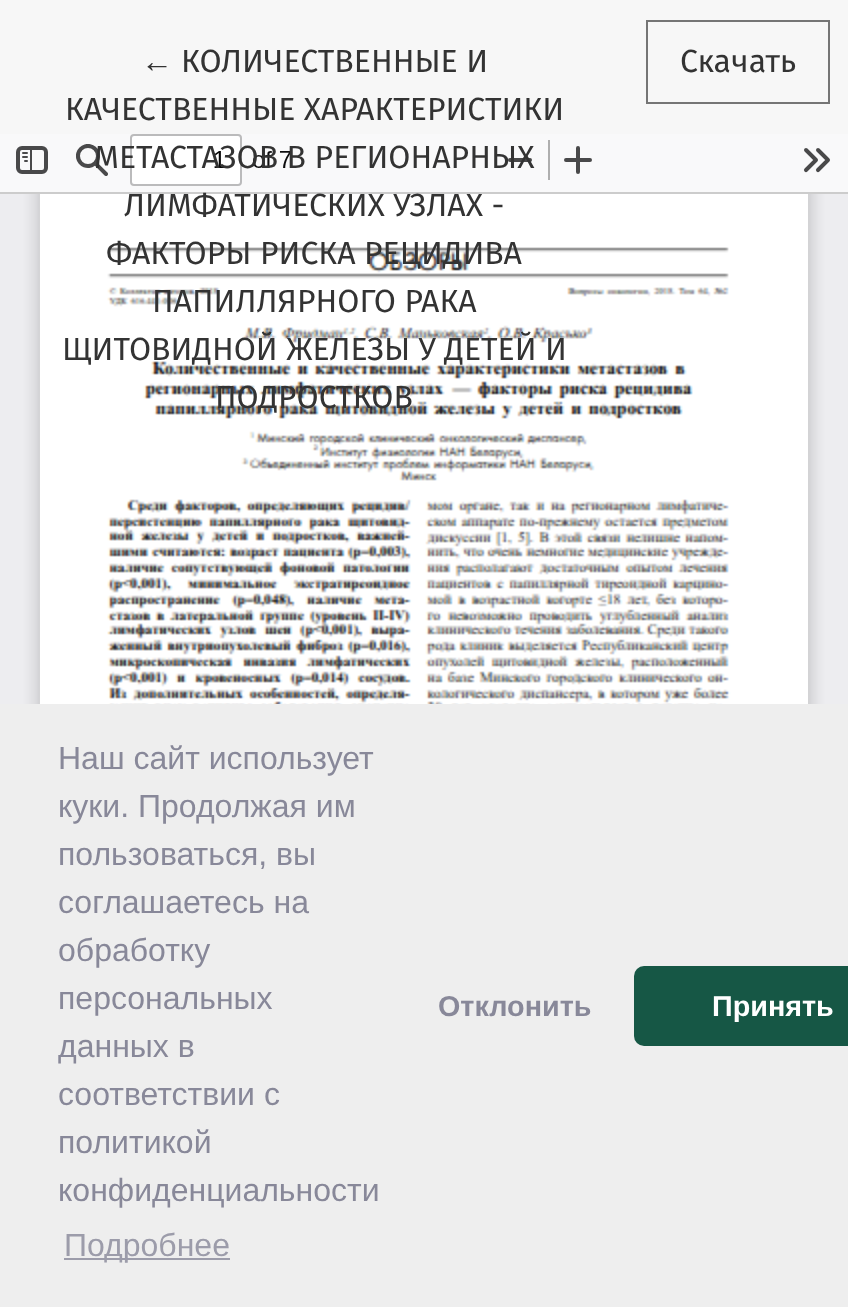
async function draw(canvas) {
	canvas.width = 848;
	canvas.height = 1307;
	const c = canvas.getContext('2d');
	c.miterLimit = 4;
	c.fontKerning = 'normal';
	async function loadImage(src) {
		const img = new Image();
		img.src = src;
		await img.decode();
		return img;
	}

	c.fillStyle = '#f7f7f7';
	c.fillRect(0, 0, 848, 1307);
	c.font = '32px Liberation Sans';
	c.fillStyle = '#333';
	c.fillText('←', 141, 72);
	c.font = '32px Fira Sans';
	c.fillText('КОЛИЧЕСТВЕННЫЕ И', 181, 72);
	c.fillText('КАЧЕСТВЕННЫЕ ХАРАКТЕРИСТИКИ', 65, 120);
	c.drawImage(await loadImage('img1.png'), 0, 134, 848, 570);
	for (const [text, x, y] of [
		['МЕТАСТАЗОВ В РЕГИОНАРНЫХ', 94, 168],
		['ЛИМФАТИЧЕСКИХ УЗЛАХ -', 124, 216],
		['ФАКТОРЫ РИСКА РЕЦИДИВА', 106, 264],
		['ПАПИЛЛЯРНОГО РАКА', 152, 312],
		['ЩИТОВИДНОЙ ЖЕЛЕЗЫ У ДЕТЕЙ И', 62, 360],
		['ПОДРОСТКОВ', 215, 408],
	]) {
		c.fillText(text, x, y);
	}
	c.strokeStyle = '#757575';
	c.lineWidth = 2;
	c.strokeRect(647, 21, 182, 82);
	c.fillText('Скачать', 680, 72);
	c.fillStyle = '#eee';
	c.fillRect(0, 704, 848, 603);
	c.font = '32px Liberation Sans';
	c.fillStyle = '#889';
	for (const [text, x, y] of [
		['Наш сайт использует', 58, 769],
		['куки. Продолжая им', 58, 817],
		['пользоваться, вы', 58, 865],
		['соглашаетесь на', 58, 913],
		['обработку', 58, 961],
		['персональных', 58, 1009],
		['данных в', 58, 1057],
		['соответствии с', 58, 1105],
		['политикой', 58, 1153],
		['конфиденциальности', 58, 1201],
	]) {
		c.fillText(text, x, y);
	}
	c.fillStyle = '#9c9caa';
	c.fillRect(64, 1258, 166, 2);
	c.fillText('Подробнее', 64, 1256);
	c.font = 'bold 28.75px Liberation Sans';
	c.fillStyle = '#889';
	c.fillText('Отклонить', 438, 1016);
	c.fillStyle = '#165745';
	c.beginPath();
	c.roundRect(634, 966, 214, 80, [10, 0, 0, 10]);
	c.fill();
	c.fillStyle = '#fff';
	c.fillText('Принять', 712, 1016);
}

draw(document.querySelector('canvas'));
